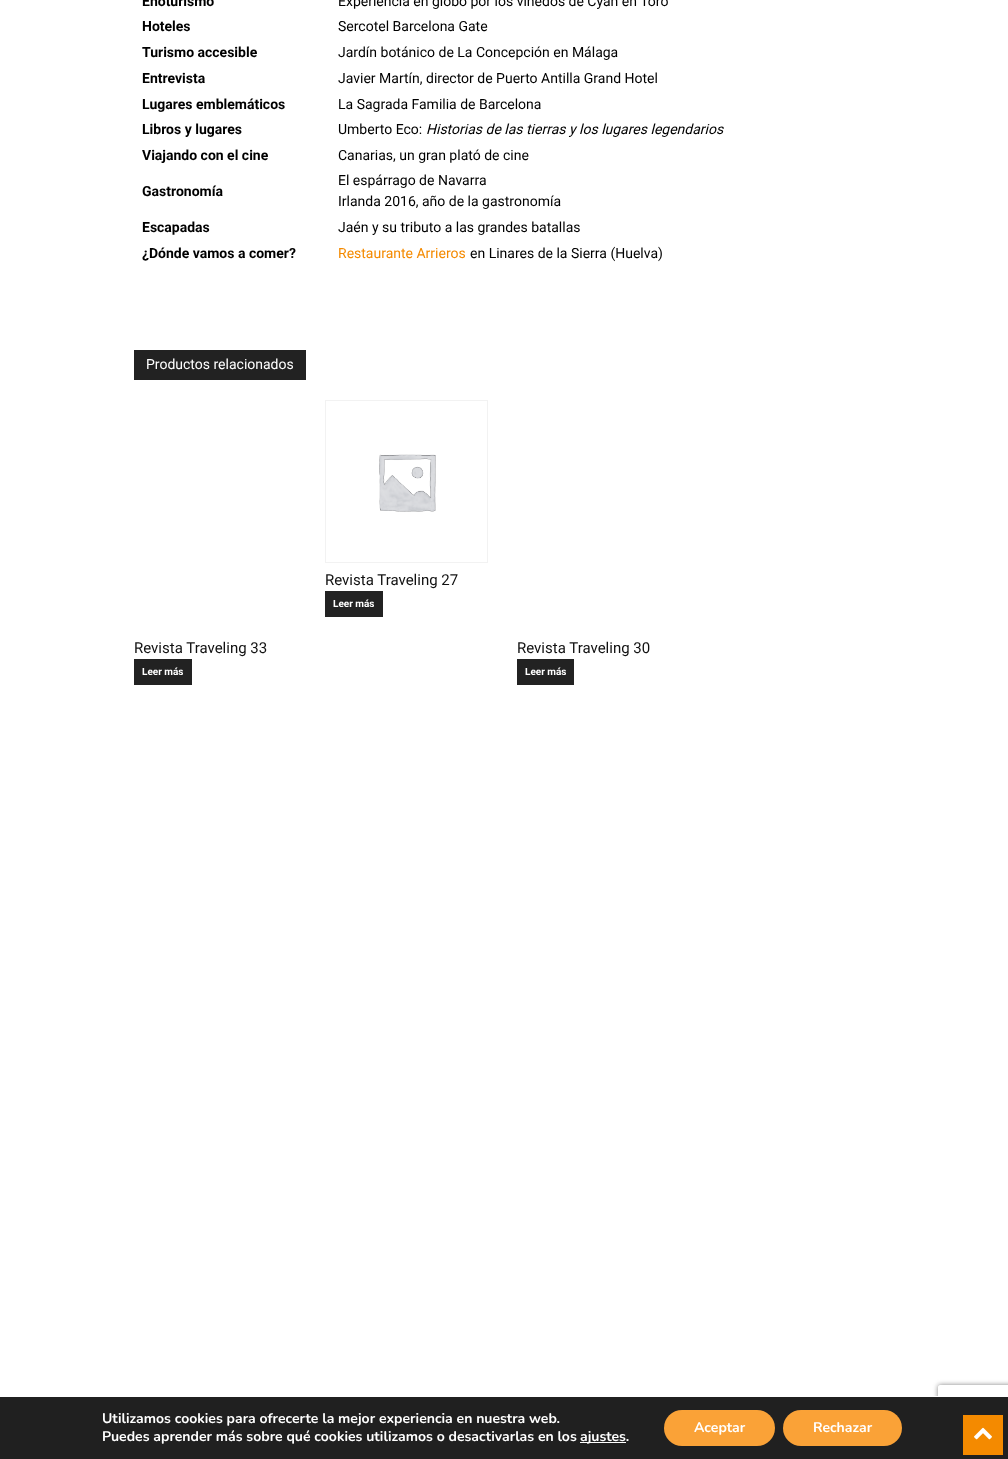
async function draw(canvas) {
	canvas.width = 1008;
	canvas.height = 1459;
	const c = canvas.getContext('2d');
	c.miterLimit = 4;
	c.fontKerning = 'normal';
	async function loadImage(src) {
		const img = new Image();
		img.src = src;
		await img.decode();
		return img;
	}

	c.fillStyle = '#fff';
	c.fillRect(0, 0, 1008, 1459);
	c.font = 'bold 14px Roboto';
	c.fillStyle = '#000';
	c.fillText('Enoturismo', 142, 6);
	c.font = '14px Roboto';
	c.fillText('Experiencia en globo por los viñedos de Cyan en Toro', 338, 6);
	c.font = 'bold 14px Roboto';
	c.fillText('Hoteles', 142, 31);
	c.font = '14px Roboto';
	c.fillText('Sercotel Barcelona Gate', 338, 31);
	c.font = 'bold 14px Roboto';
	c.fillText('Turismo accesible', 142, 57);
	c.font = '14px Roboto';
	c.fillText('Jardín botánico de La Concepción en Málaga', 338, 57);
	c.font = 'bold 14px Roboto';
	c.fillText('Entrevista', 142, 83);
	c.font = '14px Roboto';
	c.fillText('Javier Martín, director de Puerto Antilla Grand Hotel', 338, 83);
	c.font = 'bold 14px Roboto';
	c.fillText('Lugares emblemáticos', 142, 109);
	c.font = '14px Roboto';
	c.fillText('La Sagrada Familia de Barcelona', 338, 109);
	c.font = 'bold 14px Roboto';
	c.fillText('Libros y lugares', 142, 134);
	c.font = '14px Roboto';
	c.fillText('Umberto Eco:', 338, 134);
	c.font = 'italic 14px Roboto';
	c.fillText('Historias de las tierras y los lugares legendarios', 426, 134);
	c.font = 'bold 14px Roboto';
	c.fillText('Viajando con el cine', 142, 160);
	c.font = '14px Roboto';
	c.fillText('Canarias, un gran plató de cine', 338, 160);
	c.font = 'bold 14px Roboto';
	c.fillText('Gastronomía', 142, 196);
	c.font = '14px Roboto';
	c.fillText('El espárrago de Navarra', 338, 185);
	c.fillText('Irlanda 2016, año de la gastronomía', 338, 206);
	c.font = 'bold 14px Roboto';
	c.fillText('Escapadas', 142, 232);
	c.font = '14px Roboto';
	c.fillText('Jaén y su tributo a las grandes batallas', 338, 232);
	c.font = 'bold 14px Roboto';
	c.fillText('¿Dónde vamos a comer?', 142, 258);
	c.font = '14px Roboto';
	c.fillStyle = '#f48a00';
	c.fillText('Restaurante Arrieros', 338, 258);
	c.fillStyle = '#000';
	c.fillText('en Linares de la Sierra (Huelva)', 470, 258);
	c.fillStyle = '#222';
	c.fillRect(134, 350, 172, 30);
	c.fillStyle = '#fff';
	c.fillText('Productos relacionados', 146, 369);
	c.strokeStyle = '#f2f2f2';
	c.strokeRect(325.5, 400.5, 162, 162);
	c.drawImage(await loadImage('img1.png'), 379, 454, 57, 58);
	c.font = '15px Roboto';
	c.fillStyle = '#111';
	c.fillText('Revista Traveling 27', 325, 585);
	c.fillStyle = '#222';
	c.fillRect(325, 591, 58, 26);
	c.font = 'bold 10px Roboto';
	c.fillStyle = '#fff';
	c.fillText('Leer más', 333, 607);
	c.font = '15px Roboto';
	c.fillStyle = '#111';
	c.fillText('Revista Traveling 33', 134, 653);
	c.fillStyle = '#222';
	c.fillRect(134, 659, 58, 26);
	c.font = 'bold 10px Roboto';
	c.fillStyle = '#fff';
	c.fillText('Leer más', 142, 675);
	c.font = '15px Roboto';
	c.fillStyle = '#111';
	c.fillText('Revista Traveling 30', 517, 653);
	c.fillStyle = '#222';
	c.fillRect(517, 659, 57, 26);
	c.font = 'bold 10px Roboto';
	c.fillStyle = '#fff';
	c.fillText('Leer más', 525, 675);
	c.save();
	c.beginPath();
	c.moveTo(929, 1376);
	c.lineTo(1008, 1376);
	c.lineTo(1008, 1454);
	c.lineTo(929, 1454);
	c.closePath();
	c.moveTo(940, 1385);
	c.lineTo(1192, 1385);
	c.bezierCurveTo(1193, 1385, 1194, 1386, 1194, 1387);
	c.lineTo(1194, 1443);
	c.bezierCurveTo(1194, 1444, 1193, 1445, 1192, 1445);
	c.lineTo(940, 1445);
	c.bezierCurveTo(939, 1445, 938, 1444, 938, 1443);
	c.lineTo(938, 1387);
	c.bezierCurveTo(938, 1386, 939, 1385, 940, 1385);
	c.closePath();
	c.clip('evenodd');
	c.fillStyle = '#808080';
	c.filter = 'blur(2.5px)';
	c.beginPath();
	c.roundRect(938, 1385, 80, 60, 2);
	c.fill();
	c.filter = 'none';
	c.restore();
	c.fillStyle = '#202020';
	c.fillRect(0, 1397, 1008, 62);
	c.fillStyle = '#fff';
	c.fillRect(933, 1396, 5, 1);
	c.font = 'bold 14px Nunito';
	c.fillText('Utilizamos cookies para ofrecerte la mejor experiencia en nuestra web.', 102, 1423);
	c.fillText('Puedes aprender más sobre qué cookies utilizamos o desactivarlas en los', 102, 1441);
	c.fillRect(580, 1442, 46, 1);
	c.fillText('ajustes.', 580, 1441);
	c.fillStyle = '#faa237';
	c.beginPath();
	c.roundRect(664, 1410, 111, 36, 18);
	c.fill();
	c.fillStyle = '#fff';
	c.fillText('Aceptar', 694, 1432);
	c.fillStyle = '#faa237';
	c.beginPath();
	c.roundRect(783, 1410, 119, 36, 18);
	c.fill();
	c.fillStyle = '#fff';
	c.fillText('Rechazar', 813, 1432);
	c.fillStyle = '#f48a00';
	c.fillRect(963, 1415, 40, 40);
	c.drawImage(await loadImage('img2.png'), 974, 1427, 18, 13);
}

draw(document.querySelector('canvas'));
